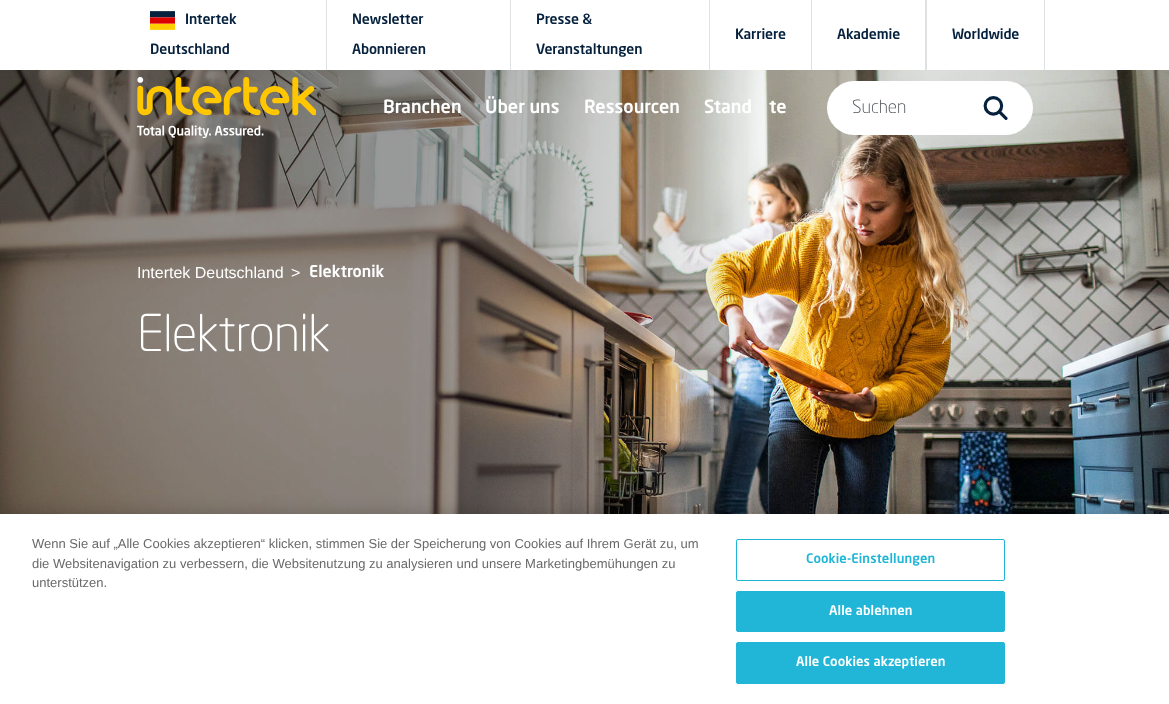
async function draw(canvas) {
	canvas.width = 1169;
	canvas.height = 704;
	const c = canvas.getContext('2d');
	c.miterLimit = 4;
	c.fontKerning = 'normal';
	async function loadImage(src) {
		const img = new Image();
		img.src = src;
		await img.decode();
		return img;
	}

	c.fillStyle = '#fff';
	c.fillRect(0, 0, 1169, 704);
	c.drawImage(await loadImage('img1.png'), 150, 11, 25, 19);
	c.letterSpacing = '-0.1px';
	c.font = '500 14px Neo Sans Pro';
	c.fillStyle = '#06213d';
	c.fillText('Intertek', 185, 24);
	c.fillText('Deutschland', 150, 54);
	c.fillStyle = '#dfe2e4';
	c.fillRect(326, 0, 1, 70);
	c.fillStyle = '#06213d';
	c.fillText('Newsletter', 352, 24);
	c.fillText('Abonnieren', 352, 54);
	c.fillStyle = '#dfe2e4';
	c.fillRect(510, 0, 1, 70);
	c.fillStyle = '#06213d';
	c.fillText('Presse &', 536, 24);
	c.fillText('Veranstaltungen', 536, 54);
	c.fillStyle = '#dfe2e4';
	c.fillRect(709, 0, 1, 70);
	c.fillStyle = '#06213d';
	c.fillText('Karriere', 735, 39);
	c.fillStyle = '#dfe2e4';
	c.fillRect(811, 0, 1, 70);
	c.fillStyle = '#06213d';
	c.fillText('Akademie', 837, 39);
	c.fillStyle = '#dfe2e4';
	c.fillRect(925, 0, 2, 70);
	c.fillRect(1044, 0, 1, 70);
	c.fillStyle = '#06213d';
	c.fillText('Worldwide', 952, 39);
	c.drawImage(await loadImage('img4.png'), 0, 70, 1169, 444);
	c.letterSpacing = '0px';
	c.font = '500 18px Neo Sans Pro';
	c.fillStyle = '#fff';
	for (const [text, x, y] of [
		['Branchen', 383, 113],
		['Über uns', 485, 113],
		['Ressourcen', 584, 113],
		['Stand', 704, 113],
		['te', 769, 113],
	]) {
		c.fillText(text, x, y);
	}
	c.drawImage(await loadImage('img2.png'), 137, 77, 179, 61);
	c.beginPath();
	c.roundRect(827, 81, 206, 54, 27);
	c.fill();
	c.font = '300 18px Neo Sans Pro';
	c.fillStyle = '#474e54';
	c.fillText('Suchen', 852, 113);
	c.drawImage(await loadImage('img3.png'), 983, 96, 25, 24);
	c.font = '16px Liberation Sans';
	c.fillStyle = '#fff';
	c.fillText('Intertek Deutschland', 137, 278);
	c.fillText('>', 291, 278);
	c.font = '500 16px Neo Sans Pro';
	c.fillText('Elektronik', 309, 277);
	c.letterSpacing = '-1px';
	c.font = '300 50px Neo Sans Pro';
	c.fillText('Elektronik', 137, 351);
	c.fillStyle = '#00000033';
	c.filter = 'blur(9px)';
	c.beginPath();
	c.rect(0, 514, 1169, 190);
	c.fill();
	c.filter = 'none';
	c.fillStyle = '#fff';
	c.fillRect(0, 514, 1169, 190);
	c.letterSpacing = '0px';
	c.font = '13px Liberation Sans';
	c.fillStyle = '#696969';
	for (const [text, x, y] of [
		['Wenn Sie auf „Alle Cookies akzeptieren“ klicken, stimmen Sie der Speicherung von Cookies auf Ihrem Gerät zu, um', 32, 548],
		['die Websitenavigation zu verbessern, die Websitenutzung zu analysieren und unsere Marketingbemühungen zu', 32, 568],
		['unterstützen.', 32, 587],
	]) {
		c.fillText(text, x, y);
	}
	c.beginPath();
	c.roundRect(736.5, 539.5, 268, 41, 1.5);
	c.strokeStyle = '#21b6d7';
	c.stroke();
	c.letterSpacing = '0.1px';
	c.font = '500 13px Neo Sans Pro';
	c.fillStyle = '#21b6d7';
	c.fillText('Cookie-Einstellungen', 806, 563);
	c.beginPath();
	c.roundRect(736.5, 591.5, 268, 40, 1.5);
	c.fill();
	c.stroke();
	c.fillStyle = '#fff';
	c.fillText('Alle ablehnen', 829, 615);
	c.fillStyle = '#21b6d7';
	c.beginPath();
	c.roundRect(736.5, 642.5, 268, 41, 1.5);
	c.fill();
	c.stroke();
	c.fillStyle = '#fff';
	c.fillText('Alle Cookies akzeptieren', 796, 666);
}

draw(document.querySelector('canvas'));
